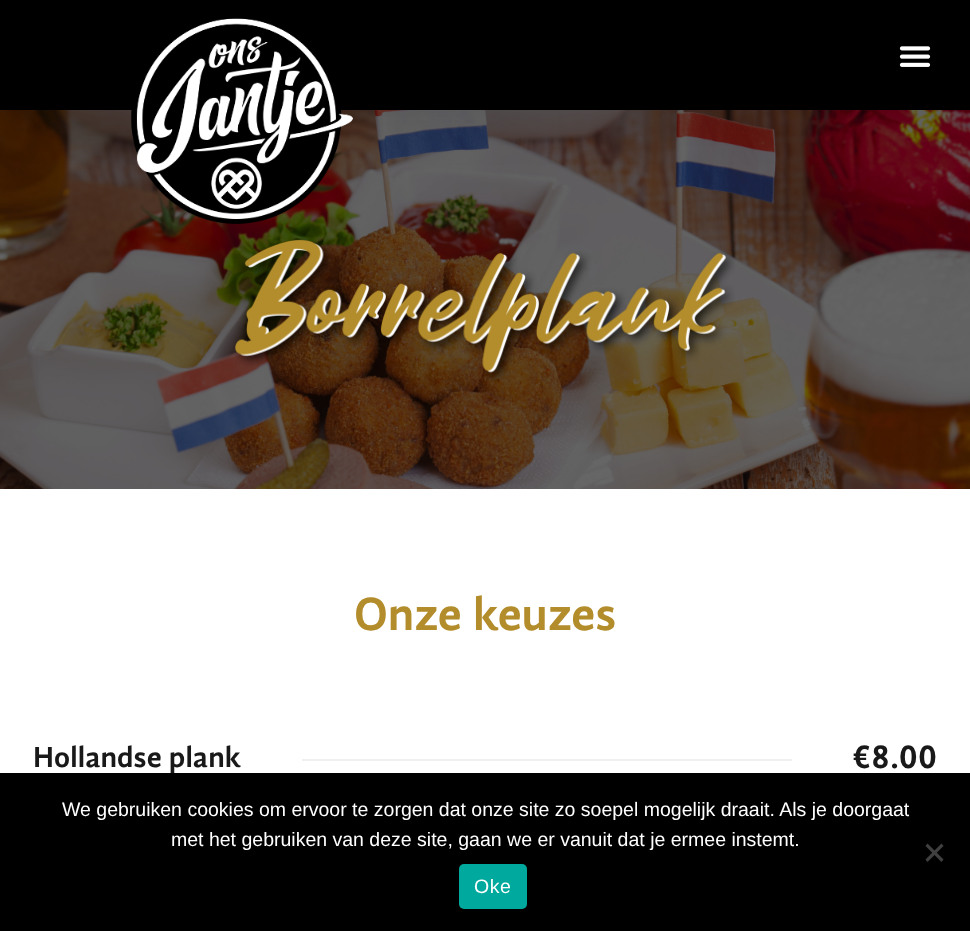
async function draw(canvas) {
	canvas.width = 970;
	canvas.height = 931;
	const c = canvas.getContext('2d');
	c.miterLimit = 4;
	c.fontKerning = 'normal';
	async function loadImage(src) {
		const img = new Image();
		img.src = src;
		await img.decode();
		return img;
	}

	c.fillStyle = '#fff';
	c.fillRect(0, 0, 970, 931);
	c.drawImage(await loadImage('img3.png'), 0, 110, 970, 379);
	c.fillStyle = '#0000001a';
	c.filter = 'blur(28.5px)';
	c.beginPath();
	c.rect(0, 0, 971, 110);
	c.fill();
	c.filter = 'none';
	c.fillStyle = '#000';
	c.fillRect(0, 0, 970, 110);
	c.drawImage(await loadImage('img1.png'), 131, 18, 222, 206);
	c.drawImage(await loadImage('img2.png'), 899, 46, 32, 21);
	c.drawImage(await loadImage('img4.png'), 235, 238, 500, 143);
	c.font = 'bold 48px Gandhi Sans';
	c.fillStyle = '#b38d2c';
	c.fillText('Onze keuzes', 354, 630);
	c.letterSpacing = '0.1px';
	c.font = 'bold 30px Gandhi Sans';
	c.fillStyle = '#191919';
	c.fillText('Hollandse plank', 33, 767);
	c.fillStyle = '#f0f0f0';
	c.fillRect(302, 759, 490, 2);
	c.font = 'bold 34.5px Gandhi Sans';
	c.fillStyle = '#191919';
	c.fillText('€8.00', 852, 768);
	c.fillStyle = '#000';
	c.fillRect(0, 773, 970, 158);
	c.letterSpacing = '0px';
	c.font = '19.5px Liberation Sans';
	c.fillStyle = '#fff';
	c.fillText('We gebruiken cookies om ervoor te zorgen dat onze site zo soepel mogelijk draait. Als je doorgaat', 62, 816);
	c.fillText('met het gebruiken van deze site, gaan we er vanuit dat je ermee instemt.', 171, 846);
	c.fillStyle = '#404040';
	c.beginPath();
	c.moveTo(941.5, 843.5);
	c.lineTo(943.5, 846);
	c.lineTo(927.5, 862);
	c.lineTo(925.5, 859.5);
	c.closePath();
	c.fill();
	c.beginPath();
	c.moveTo(925.5, 846);
	c.lineTo(927.5, 843.5);
	c.lineTo(943.5, 859.5);
	c.lineTo(941.5, 862);
	c.closePath();
	c.fill();
	c.fillStyle = '#00a99d';
	c.beginPath();
	c.roundRect(459, 864, 68, 45, 5);
	c.fill();
	c.letterSpacing = '0.5px';
	c.fillStyle = '#fff';
	c.fillText('Oke', 474, 893);
}

draw(document.querySelector('canvas'));
